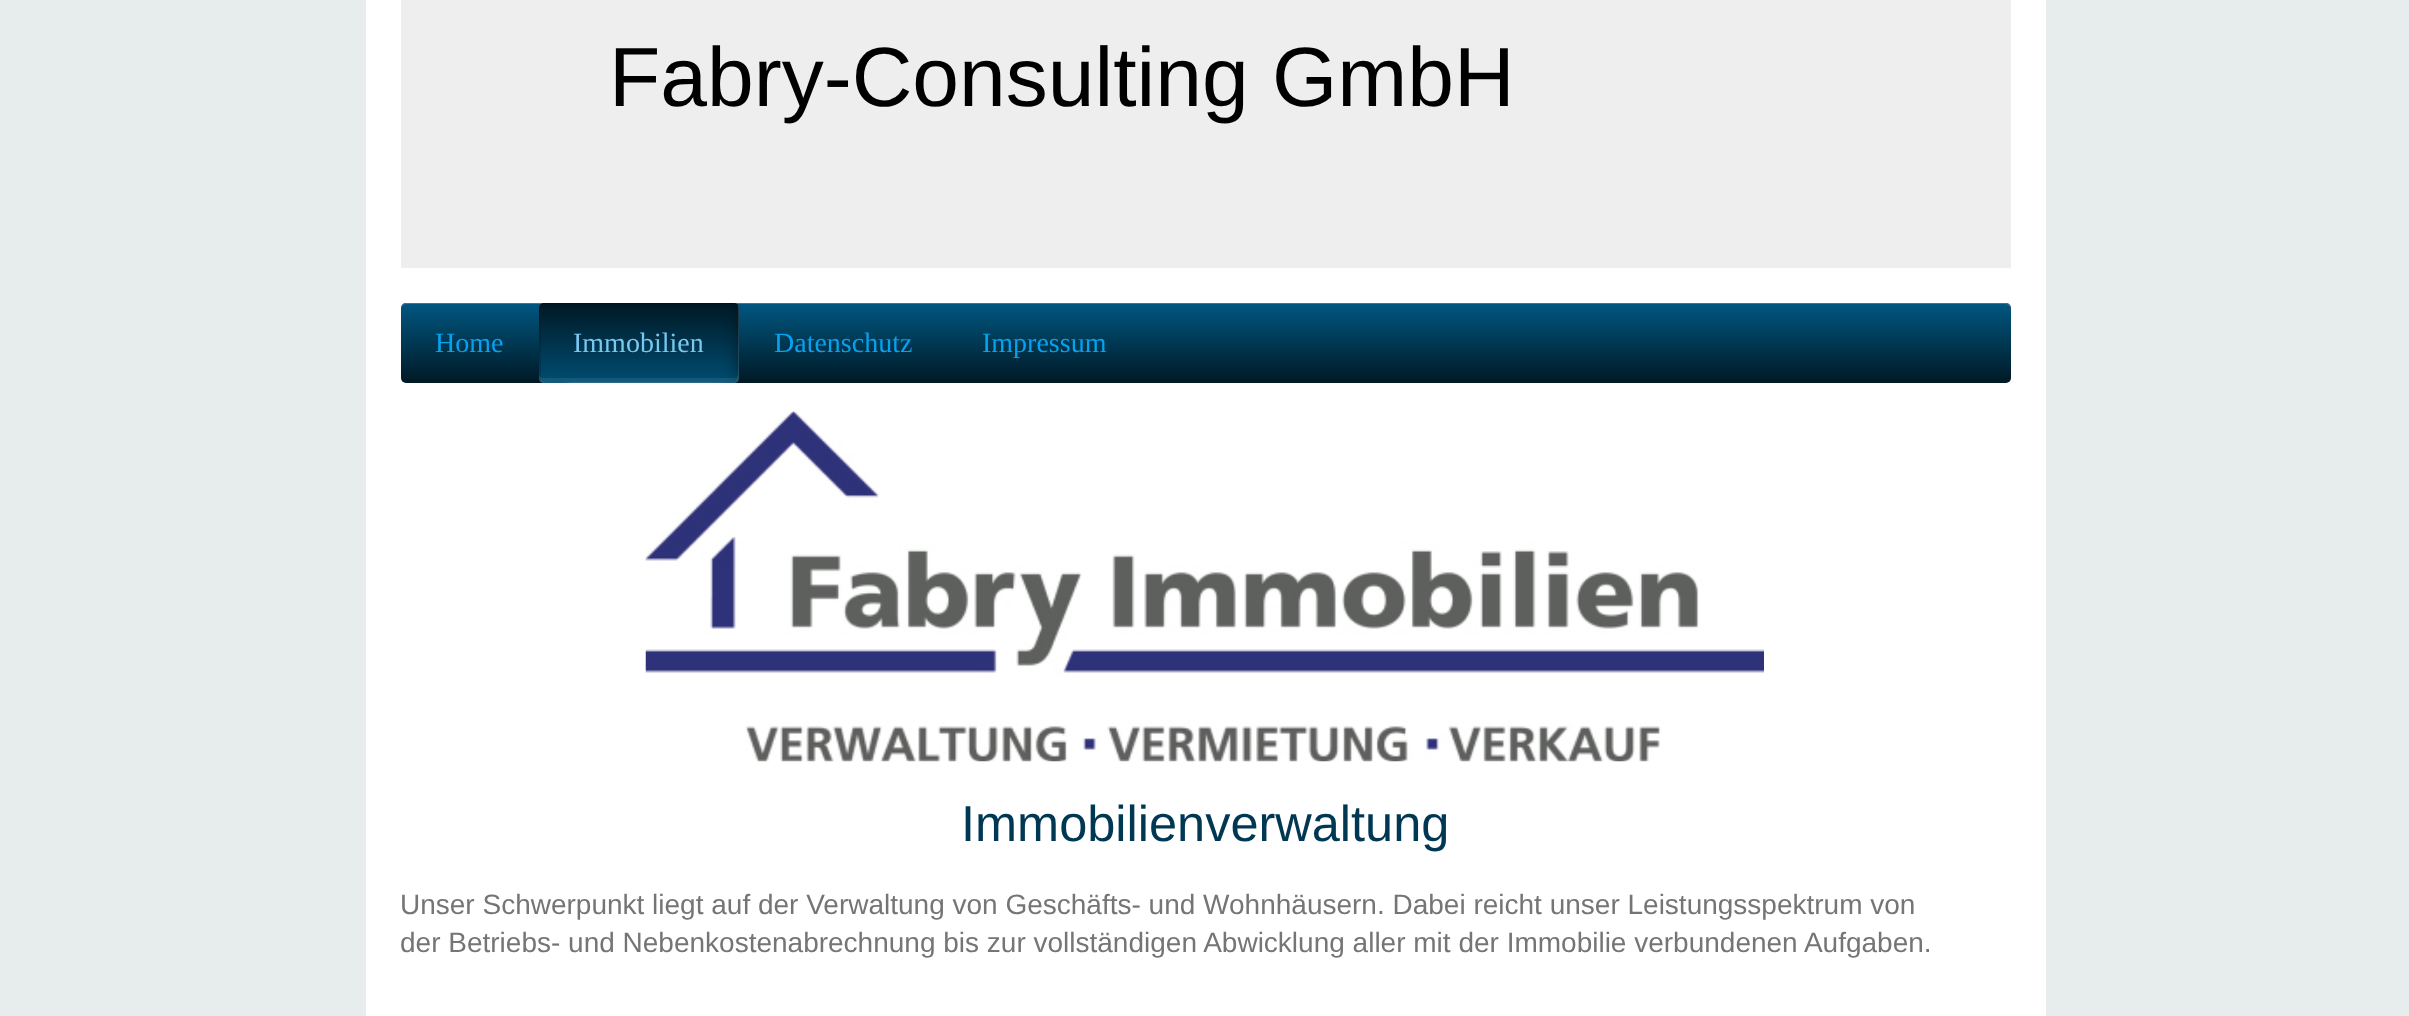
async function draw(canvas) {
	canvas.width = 2409;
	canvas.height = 1016;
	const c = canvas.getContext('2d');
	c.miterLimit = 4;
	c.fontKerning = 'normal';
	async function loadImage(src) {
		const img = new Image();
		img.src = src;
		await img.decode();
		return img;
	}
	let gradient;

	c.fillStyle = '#e7ecec';
	c.fillRect(0, 0, 2409, 1016);
	c.fillStyle = '#fff';
	c.fillRect(366, 0, 1680, 1016);
	c.fillStyle = '#eee';
	c.fillRect(401, 0, 1610, 268);
	c.font = '84px Liberation Sans';
	c.fillStyle = '#000';
	c.fillText('Fabry-Consulting GmbH', 609, 106);
	gradient = c.createLinearGradient(401, 303, 401, 383);
	gradient.addColorStop(0, '#005781');
	gradient.addColorStop(1, '#001925');
	c.fillStyle = gradient;
	c.beginPath();
	c.roundRect(401, 303, 1610, 80, 5);
	c.fill();
	c.fillStyle = '#00354e';
	c.beginPath();
	c.moveTo(406, 304);
	c.lineTo(2006, 304);
	c.bezierCurveTo(2008, 304, 2011, 307, 2011, 310);
	c.bezierCurveTo(2011, 307, 2010, 303, 2006, 303);
	c.lineTo(406, 303);
	c.bezierCurveTo(402, 303, 401, 307, 401, 310);
	c.bezierCurveTo(401, 307, 403, 304, 406, 304);
	c.closePath();
	c.fill();
	c.fillStyle = '#ffffff4d';
	c.beginPath();
	c.moveTo(406, 304);
	c.lineTo(2006, 304);
	c.bezierCurveTo(2008, 304, 2011, 307, 2011, 310);
	c.bezierCurveTo(2011, 307, 2010, 303, 2006, 303);
	c.lineTo(406, 303);
	c.bezierCurveTo(402, 303, 401, 307, 401, 310);
	c.bezierCurveTo(401, 307, 403, 304, 406, 304);
	c.closePath();
	c.fill();
	c.font = '28px Liberation Serif';
	c.fillStyle = '#06a2ee';
	c.fillText('Home', 435, 352);
	gradient = c.createLinearGradient(539, 383, 539, 303);
	gradient.addColorStop(0, '#004d72');
	gradient.addColorStop(1, '#001925');
	c.fillStyle = gradient;
	c.beginPath();
	c.roundRect(539, 303, 200, 80, 5);
	c.fill();
	c.fillStyle = '#00000026';
	c.beginPath();
	c.moveTo(546, 304);
	c.lineTo(736, 304);
	c.lineTo(738, 306);
	c.bezierCurveTo(738, 304, 736, 303, 734, 303);
	c.lineTo(544, 303);
	c.bezierCurveTo(541, 303, 539, 305, 539, 308);
	c.lineTo(539, 378);
	c.bezierCurveTo(539, 380, 540, 381, 541, 382);
	c.lineTo(541, 380);
	c.lineTo(541, 310);
	c.bezierCurveTo(541, 307, 543, 304, 546, 304);
	c.closePath();
	c.fill();
	c.fillStyle = '#0000000a';
	c.beginPath();
	c.moveTo(544, 308);
	c.lineTo(733, 308);
	c.bezierCurveTo(736, 308, 738, 310, 738, 313);
	c.lineTo(738, 381);
	c.bezierCurveTo(739, 380, 739, 379, 739, 378);
	c.lineTo(739, 308);
	c.bezierCurveTo(739, 305, 737, 303, 734, 303);
	c.lineTo(544, 303);
	c.bezierCurveTo(541, 303, 539, 305, 539, 308);
	c.lineTo(539, 313);
	c.bezierCurveTo(539, 310, 541, 308, 544, 308);
	c.closePath();
	c.fill();
	c.fillStyle = '#ffffff14';
	c.beginPath();
	c.moveTo(539, 373);
	c.lineTo(539, 378);
	c.bezierCurveTo(539, 381, 541, 383, 544, 383);
	c.lineTo(734, 383);
	c.bezierCurveTo(737, 383, 739, 381, 739, 378);
	c.lineTo(739, 308);
	c.bezierCurveTo(739, 307, 739, 306, 738, 305);
	c.lineTo(738, 373);
	c.bezierCurveTo(738, 376, 736, 378, 733, 378);
	c.lineTo(544, 378);
	c.bezierCurveTo(541, 378, 539, 376, 539, 373);
	c.closePath();
	c.fill();
	c.fillStyle = '#ffffff1a';
	c.beginPath();
	c.moveTo(539, 376);
	c.lineTo(539, 378);
	c.bezierCurveTo(539, 381, 541, 383, 544, 383);
	c.lineTo(734, 383);
	c.bezierCurveTo(737, 383, 739, 381, 739, 378);
	c.lineTo(739, 308);
	c.bezierCurveTo(739, 307, 739, 306, 738, 305);
	c.lineTo(738, 353);
	c.bezierCurveTo(738, 390, 743, 382, 702, 382);
	c.lineTo(576, 382);
	c.bezierCurveTo(564, 382, 539, 388, 539, 376);
	c.closePath();
	c.fill();
	c.fillStyle = '#79c8ee';
	c.fillText('Immobilien', 573, 352);
	c.save();
	c.beginPath();
	c.roundRect(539, 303, 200, 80, 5);
	c.clip();
	c.fillStyle = '#0000004d';
	c.filter = 'blur(6px)';
	c.beginPath();
	c.roundRect(735, 306, 28, 81, 14);
	c.fill();
	c.filter = 'none';
	c.restore();
	c.fillStyle = '#06a2ee';
	c.fillText('Datenschutz', 774, 352);
	c.fillText('Impressum', 982, 352);
	c.drawImage(await loadImage('img1.png'), 645, 411, 1119, 351);
	c.font = '50.5px Liberation Sans';
	c.fillStyle = '#003853';
	c.fillText('Immobilienverwaltung', 961, 841);
	c.font = '28px Liberation Sans';
	c.fillStyle = '#757575';
	c.fillText('Unser Schwerpunkt liegt auf der Verwaltung von Geschäfts- und Wohnhäusern. Dabei reicht unser Leistungsspektrum von', 400, 914);
	c.fillText('der Betriebs- und Nebenkostenabrechnung bis zur vollständigen Abwicklung aller mit der Immobilie verbundenen Aufgaben.', 400, 952);
}

draw(document.querySelector('canvas'));
